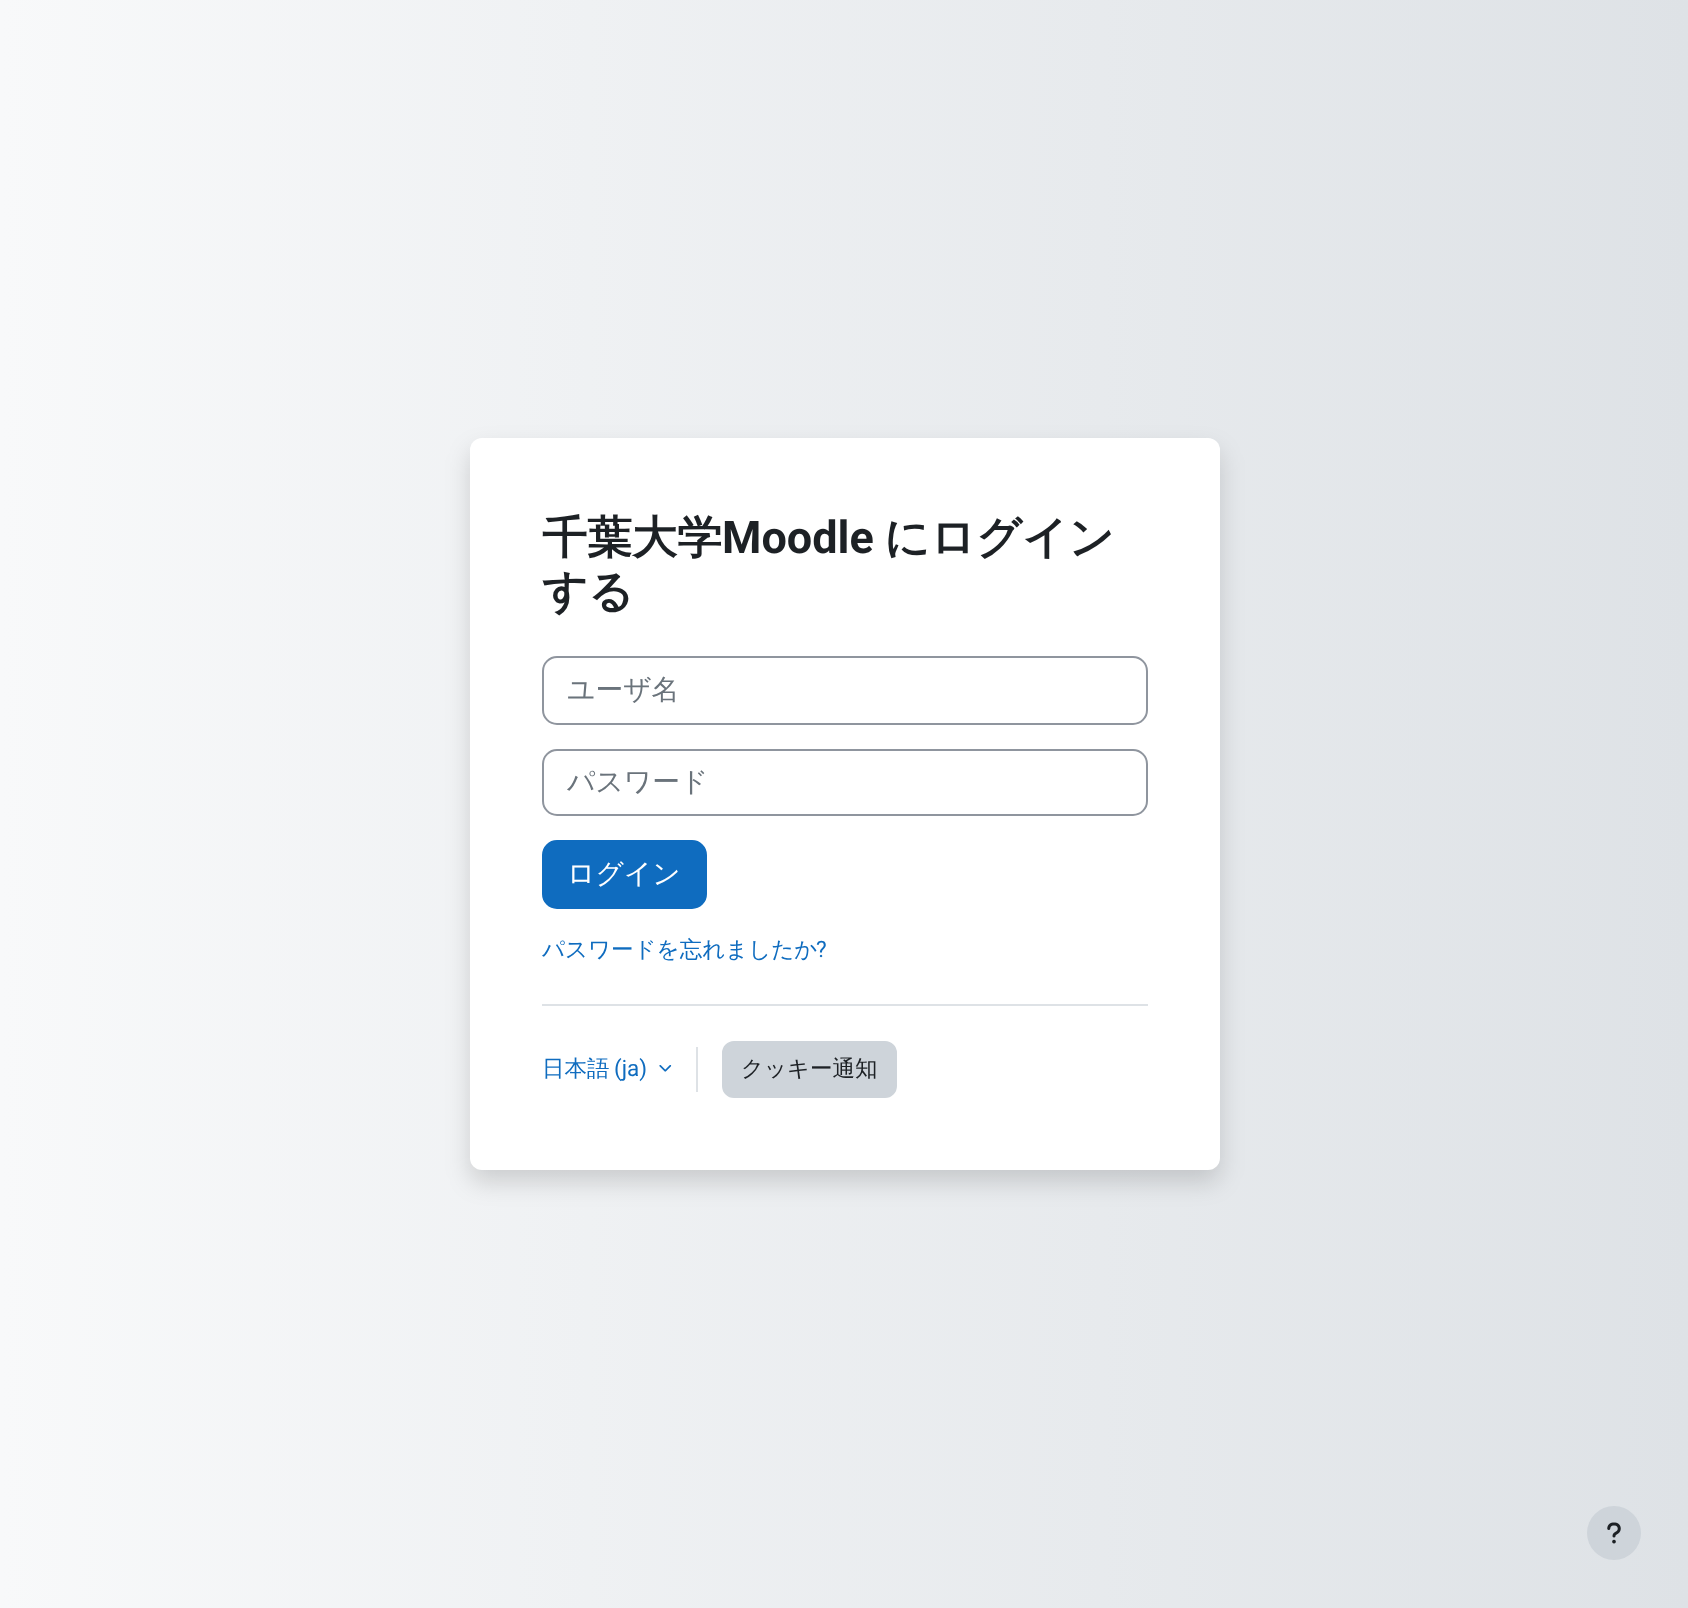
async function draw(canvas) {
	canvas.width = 1688;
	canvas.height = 1608;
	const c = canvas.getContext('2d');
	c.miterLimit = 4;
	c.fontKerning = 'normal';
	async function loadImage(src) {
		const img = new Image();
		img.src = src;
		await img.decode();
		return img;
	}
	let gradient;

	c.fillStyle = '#fff';
	c.fillRect(0, 0, 1688, 1608);
	gradient = c.createLinearGradient(0, 804, 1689, 804);
	gradient.addColorStop(0, '#f8f9fa');
	gradient.addColorStop(1, '#dee2e6');
	c.fillStyle = gradient;
	c.fillRect(0, 0, 1688, 1608);
	c.fillStyle = '#00000026';
	c.filter = 'blur(12px)';
	c.beginPath();
	c.roundRect(470, 450, 750, 732, 12);
	c.fill();
	c.filter = 'none';
	c.fillStyle = '#fff';
	c.beginPath();
	c.roundRect(470, 438, 750, 732, 12);
	c.fill();
	c.font = 'bold 45px WenQuanYi Zen Hei';
	c.fillStyle = '#1d2125';
	c.fillText('千葉大学', 542, 553);
	c.font = 'bold 45px Roboto';
	c.fillText('Moodle', 722, 553);
	c.font = 'bold 45px WenQuanYi Zen Hei';
	c.fillText('にログイン', 884, 553);
	c.fillText('する', 542, 607);
	c.beginPath();
	c.roundRect(543, 657, 604, 67, 14);
	c.strokeStyle = '#8f959e';
	c.lineWidth = 2;
	c.stroke();
	c.font = '500 27.75px WenQuanYi Zen Hei';
	c.fillStyle = '#6a737b';
	c.fillText('ユーザ名', 567, 699);
	c.beginPath();
	c.roundRect(543, 750, 604, 65, 14);
	c.stroke();
	c.fillText('パスワード', 567, 791);
	c.fillStyle = '#0f6cbf';
	c.beginPath();
	c.roundRect(543, 841, 163, 67, 14);
	c.fill();
	c.strokeStyle = '#0f6cbf';
	c.stroke();
	c.fillStyle = '#fff';
	c.fillText('ログイン', 567, 883);
	c.font = '500 22.5px WenQuanYi Zen Hei';
	c.fillStyle = '#0f6cbf';
	c.fillText('パスワードを忘れましたか', 542, 957);
	c.font = '22.5px Roboto';
	c.fillText('?', 816, 957);
	c.fillStyle = '#dee2e6';
	c.fillRect(542, 1004, 606, 2);
	c.font = '500 22.5px WenQuanYi Zen Hei';
	c.fillStyle = '#0f6cbf';
	c.fillText('日本語', 542, 1076);
	c.font = '22.5px Roboto';
	c.fillText('(ja)', 614, 1076);
	c.drawImage(await loadImage('img1.png'), 659, 1065, 13, 7);
	c.fillStyle = '#dee2e6';
	c.fillRect(696, 1047, 2, 45);
	c.fillStyle = '#ced4da';
	c.beginPath();
	c.roundRect(723, 1042, 173, 55, 11);
	c.fill();
	c.strokeStyle = '#ced4da';
	c.stroke();
	c.font = '500 22.5px WenQuanYi Zen Hei';
	c.fillStyle = '#1d2125';
	c.fillText('クッキー通知', 741, 1076);
	c.fillStyle = '#ced4da';
	c.beginPath();
	c.arc(1614, 1533, 27, 0, 2 * Math.PI);
	c.fill();
	c.drawImage(await loadImage('img2.png'), 1607, 1522, 14, 22);
}

draw(document.querySelector('canvas'));
